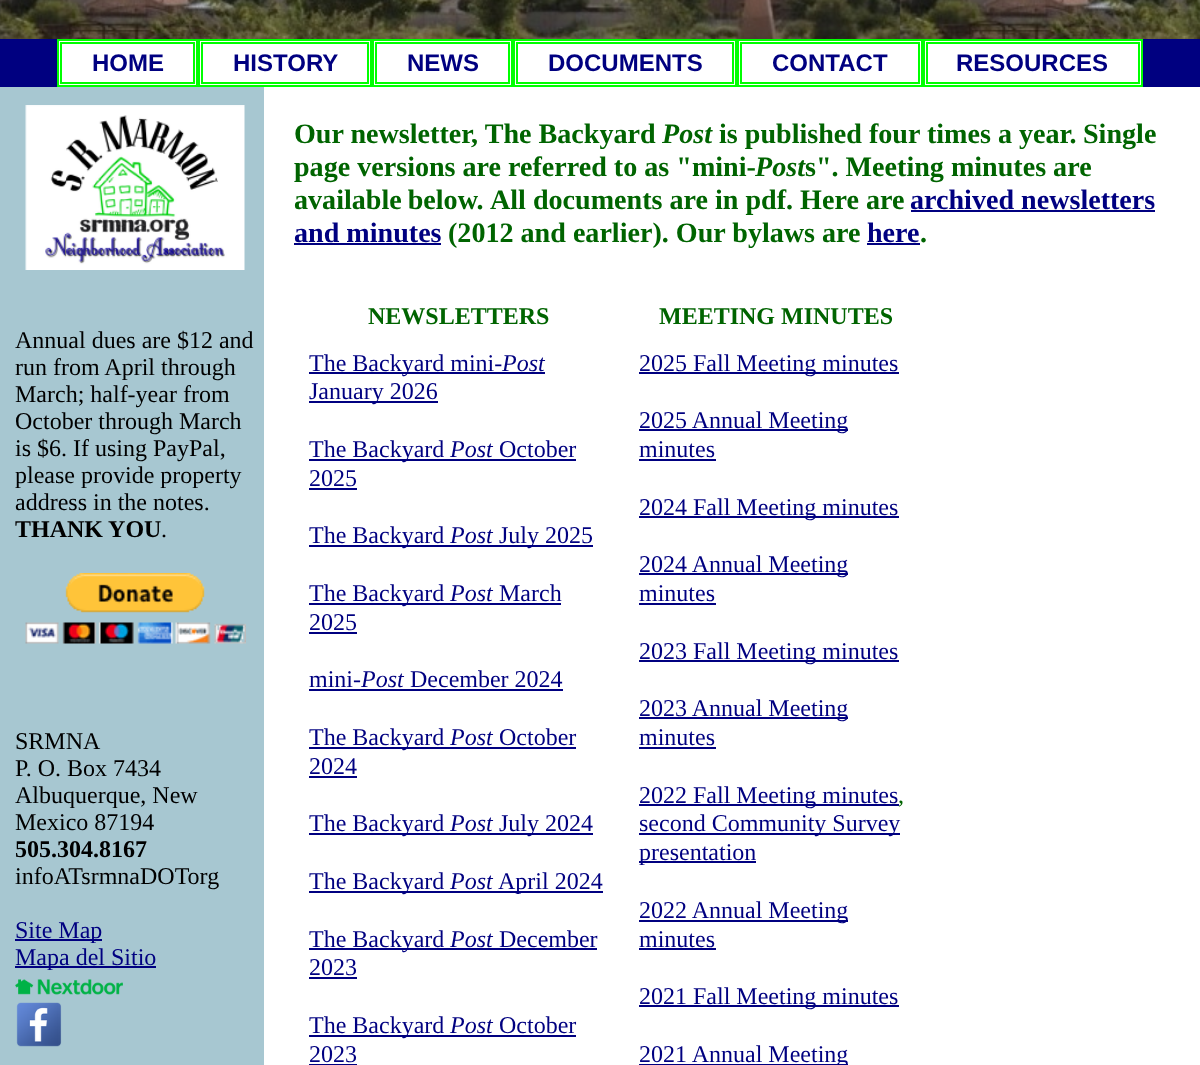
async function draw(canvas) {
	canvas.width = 1200;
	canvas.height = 1065;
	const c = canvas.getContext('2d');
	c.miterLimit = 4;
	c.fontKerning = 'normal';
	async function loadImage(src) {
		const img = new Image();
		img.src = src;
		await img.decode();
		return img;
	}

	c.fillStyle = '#000080';
	c.fillRect(0, 0, 1200, 1065);
	c.drawImage(await loadImage('img1.png'), 0, 0, 1200, 39);
	c.fillStyle = '#fff';
	c.beginPath();
	c.rect(58, 40, 139, 46);
	c.fill();
	c.strokeStyle = '#0f0';
	c.lineWidth = 2;
	c.stroke();
	c.strokeRect(61, 43, 133, 40);
	c.font = 'bold 24px Liberation Sans';
	c.fillStyle = '#000080';
	c.fillText('HOME', 92, 71);
	c.fillStyle = '#fff';
	c.beginPath();
	c.rect(199, 40, 172, 46);
	c.fill();
	c.stroke();
	c.strokeRect(202, 43, 166, 40);
	c.fillStyle = '#000080';
	c.fillText('HISTORY', 233, 71);
	c.fillStyle = '#fff';
	c.beginPath();
	c.rect(373, 40, 139, 46);
	c.fill();
	c.stroke();
	c.strokeRect(376, 43, 133, 40);
	c.fillStyle = '#000080';
	c.fillText('NEWS', 407, 71);
	c.fillStyle = '#fff';
	c.beginPath();
	c.rect(514, 40, 222, 46);
	c.fill();
	c.stroke();
	c.strokeRect(517, 43, 216, 40);
	c.fillStyle = '#000080';
	c.fillText('DOCUMENTS', 548, 71);
	c.fillStyle = '#fff';
	c.beginPath();
	c.rect(738, 40, 184, 46);
	c.fill();
	c.stroke();
	c.strokeRect(741, 43, 178, 40);
	c.fillStyle = '#000080';
	c.fillText('CONTACT', 772, 71);
	c.fillStyle = '#fff';
	c.beginPath();
	c.rect(924, 40, 218, 46);
	c.fill();
	c.stroke();
	c.strokeRect(927, 43, 212, 40);
	c.fillStyle = '#000080';
	c.fillText('RESOURCES', 956, 71);
	c.fillStyle = '#a7c7d1';
	c.fillRect(0, 87, 264, 978);
	c.drawImage(await loadImage('img2.png'), 25, 105, 220, 165);
	c.font = '24px Liberation Serif';
	c.fillStyle = '#000';
	for (const [text, x, y] of [
		['Annual dues are $12 and', 15, 348],
		['run from April through', 15, 375],
		['March; half-year from', 15, 402],
		['October through March', 15, 429],
		['is $6. If using PayPal,', 15, 456],
		['please provide property', 15, 483],
		['address in the notes.', 15, 510],
	]) {
		c.fillText(text, x, y);
	}
	c.font = 'bold 24px Liberation Serif';
	c.fillText('THANK YOU', 15, 537);
	c.font = '24px Liberation Serif';
	c.fillText('.', 161, 537);
	c.drawImage(await loadImage('img3.png'), 25, 573, 221, 71);
	for (const [text, x, y] of [
		['SRMNA', 15, 749],
		['P. O. Box 7434', 15, 776],
		['Albuquerque, New', 15, 803],
		['Mexico 87194', 15, 830],
	]) {
		c.fillText(text, x, y);
	}
	c.font = 'bold 24px Liberation Serif';
	c.fillText('505.304.8167', 15, 857);
	c.font = '24px Liberation Serif';
	c.fillText('infoATsrmnaDOTorg', 15, 884);
	c.fillStyle = '#000080';
	c.fillRect(15, 939, 87, 2);
	c.fillText('Site Map', 15, 938);
	c.fillRect(15, 966, 141, 2);
	c.fillText('Mapa del Sitio', 15, 965);
	c.drawImage(await loadImage('img4.png'), 15, 979, 108, 16);
	c.drawImage(await loadImage('img5.png'), 16, 1002, 46, 45);
	c.fillStyle = '#fff';
	c.fillRect(264, 87, 936, 978);
	c.font = 'bold 28.1px Liberation Serif';
	c.fillStyle = '#006400';
	c.fillText('Our newsletter, The Backyard', 294, 143);
	c.font = 'italic bold 28.1px Liberation Serif';
	c.fillText('Post', 662, 143);
	c.font = 'bold 28.1px Liberation Serif';
	for (const [text, x, y] of [
		['is published four times a year.', 719, 143],
		['Single', 1083, 143],
		['page versions are referred to as "mini-', 294, 176],
	]) {
		c.fillText(text, x, y);
	}
	c.font = 'italic bold 28.1px Liberation Serif';
	c.fillText('Post', 755, 176);
	c.font = 'bold 28.1px Liberation Serif';
	c.fillText('s". Meeting minutes are', 805, 176);
	c.wordSpacing = '-1px';
	c.fillText('available below.', 294, 209);
	c.wordSpacing = '0px';
	c.fillText('All documents are in pdf. Here are', 490, 209);
	c.fillStyle = '#000080';
	c.fillText('archived newsletters', 910, 209);
	c.fillRect(911, 210, 244, 2);
	c.fillText('and minutes', 294, 242);
	c.fillRect(294, 243, 147, 2);
	c.fillStyle = '#006400';
	c.fillText('(2012 and earlier). Our bylaws are', 448, 242);
	c.fillStyle = '#000080';
	c.fillText('here', 867, 242);
	c.fillRect(867, 243, 53, 2);
	c.fillStyle = '#006400';
	c.fillText('.', 920, 242);
	c.font = 'bold 24px Liberation Serif';
	c.fillText('NEWSLETTERS', 368, 324);
	c.fillText('MEETING MINUTES', 659, 324);
	c.fillStyle = '#000080';
	c.fillRect(309, 372, 236, 2);
	c.font = '24px Liberation Serif';
	c.fillText('The Backyard mini-', 309, 371);
	c.font = 'italic 24px Liberation Serif';
	c.fillText('Post', 502, 371);
	c.fillRect(309, 401, 129, 2);
	c.font = '24px Liberation Serif';
	c.fillText('January 2026', 309, 399);
	c.fillRect(309, 459, 267, 2);
	c.fillText('The Backyard', 309, 457);
	c.font = 'italic 24px Liberation Serif';
	c.fillText('Post', 450, 457);
	c.font = '24px Liberation Serif';
	c.fillText('October', 499, 457);
	c.fillText('2025', 309, 486);
	c.fillRect(309, 488, 48, 2);
	c.fillRect(309, 545, 284, 2);
	c.fillText('The Backyard', 309, 543);
	c.font = 'italic 24px Liberation Serif';
	c.fillText('Post', 450, 543);
	c.font = '24px Liberation Serif';
	c.fillText('July 2025', 499, 543);
	c.fillRect(309, 603, 252, 2);
	c.fillText('The Backyard', 309, 601);
	c.font = 'italic 24px Liberation Serif';
	c.fillText('Post', 450, 601);
	c.font = '24px Liberation Serif';
	c.fillText('March', 499, 601);
	c.fillText('2025', 309, 630);
	c.fillRect(309, 632, 48, 2);
	c.fillText('mini-', 309, 687);
	c.font = 'italic 24px Liberation Serif';
	c.fillText('Post', 361, 687);
	c.fillRect(309, 689, 254, 2);
	c.font = '24px Liberation Serif';
	c.fillText('December 2024', 410, 687);
	c.fillRect(309, 747, 267, 2);
	c.fillText('The Backyard', 309, 745);
	c.font = 'italic 24px Liberation Serif';
	c.fillText('Post', 450, 745);
	c.font = '24px Liberation Serif';
	c.fillText('October', 499, 745);
	c.fillText('2024', 309, 774);
	c.fillRect(309, 776, 48, 2);
	c.fillRect(309, 833, 284, 2);
	c.fillText('The Backyard', 309, 831);
	c.font = 'italic 24px Liberation Serif';
	c.fillText('Post', 450, 831);
	c.font = '24px Liberation Serif';
	c.fillText('July 2024', 499, 831);
	c.fillRect(309, 891, 294, 2);
	c.fillText('The Backyard', 309, 889);
	c.font = 'italic 24px Liberation Serif';
	c.fillText('Post', 450, 889);
	c.font = '24px Liberation Serif';
	c.fillText('April 2024', 498, 889);
	c.fillRect(309, 948, 288, 2);
	c.fillText('The Backyard', 309, 947);
	c.font = 'italic 24px Liberation Serif';
	c.fillText('Post', 450, 947);
	c.font = '24px Liberation Serif';
	c.fillText('December', 499, 947);
	c.fillText('2023', 309, 975);
	c.fillRect(309, 977, 48, 2);
	c.fillRect(309, 1035, 267, 2);
	c.fillText('The Backyard', 309, 1033);
	c.font = 'italic 24px Liberation Serif';
	c.fillText('Post', 450, 1033);
	c.font = '24px Liberation Serif';
	c.fillText('October', 499, 1033);
	c.fillText('2023', 309, 1062);
	c.fillRect(309, 1064, 48, 1);
	c.fillRect(639, 372, 260, 2);
	c.fillText('2025 Fall Meeting minutes', 639, 371);
	c.fillRect(639, 429, 209, 2);
	c.fillText('2025 Annual Meeting', 639, 428);
	c.fillText('minutes', 639, 457);
	c.fillRect(639, 459, 77, 2);
	c.fillRect(639, 516, 260, 2);
	c.fillText('2024 Fall Meeting minutes', 639, 515);
	c.fillRect(639, 573, 209, 2);
	c.fillText('2024 Annual Meeting', 639, 572);
	c.fillText('minutes', 639, 601);
	c.fillRect(639, 603, 77, 2);
	c.fillRect(639, 660, 260, 2);
	c.fillText('2023 Fall Meeting minutes', 639, 659);
	c.fillRect(639, 717, 209, 2);
	c.fillText('2023 Annual Meeting', 639, 716);
	c.fillText('minutes', 639, 745);
	c.fillRect(639, 747, 77, 2);
	c.fillRect(639, 804, 260, 2);
	c.fillText('2022 Fall Meeting minutes', 639, 803);
	c.fillStyle = '#006400';
	c.fillText(',', 898, 803);
	c.fillStyle = '#000080';
	c.fillRect(639, 833, 261, 2);
	c.fillText('second Community Survey', 639, 831);
	c.fillRect(639, 861, 117, 2);
	c.fillText('presentation', 639, 860);
	c.fillRect(639, 920, 209, 2);
	c.fillText('2022 Annual Meeting', 639, 918);
	c.fillText('minutes', 639, 947);
	c.fillRect(639, 948, 77, 2);
	c.fillRect(639, 1005, 260, 2);
	c.fillText('2021 Fall Meeting minutes', 639, 1004);
	c.fillRect(639, 1064, 209, 1);
	c.fillText('2021 Annual Meeting', 639, 1062);
}

draw(document.querySelector('canvas'));
